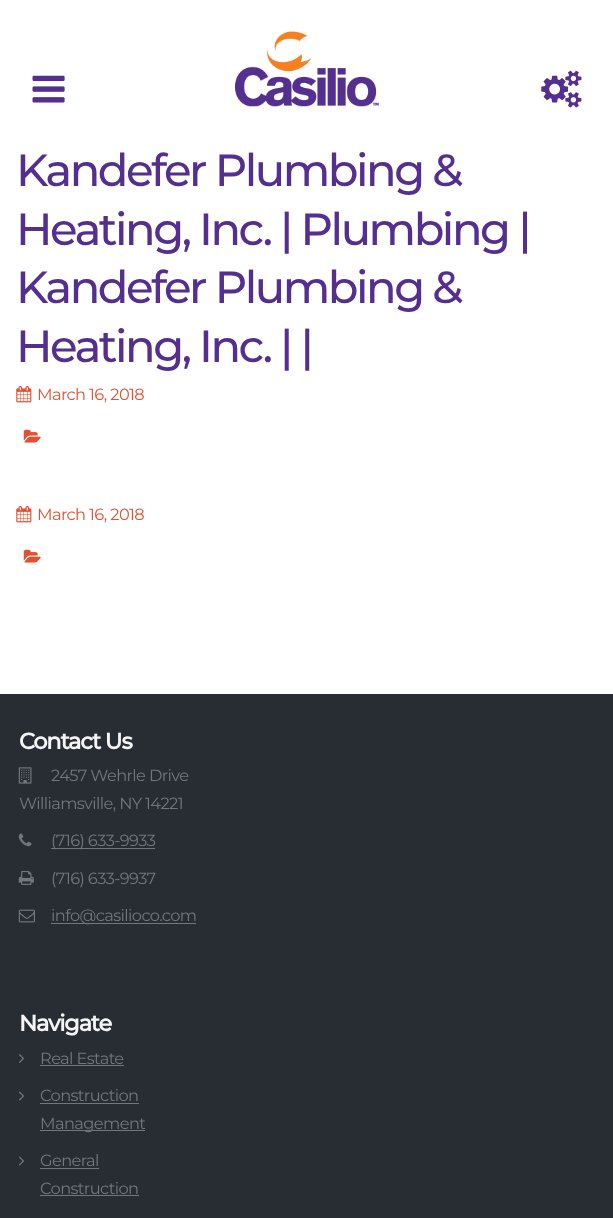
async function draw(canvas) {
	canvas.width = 613;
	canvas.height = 1218;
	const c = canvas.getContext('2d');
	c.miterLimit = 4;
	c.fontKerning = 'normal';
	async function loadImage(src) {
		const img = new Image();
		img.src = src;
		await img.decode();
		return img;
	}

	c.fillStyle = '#282d33';
	c.fillRect(0, 0, 613, 1218);
	c.fillStyle = '#fff';
	c.fillRect(0, 0, 613, 694);
	c.drawImage(await loadImage('img1.png'), 32, 75, 33, 28);
	c.drawImage(await loadImage('img2.png'), 235, 31, 144, 76);
	c.drawImage(await loadImage('img3.png'), 541, 70, 41, 38);
	c.letterSpacing = '-2.5px';
	c.font = '500 45px Montserrat';
	c.fillStyle = '#542f90';
	for (const [text, x, y] of [
		['Kandefer Plumbing &', 16, 186],
		['Heating, Inc. | Plumbing |', 16, 245],
		['Kandefer Plumbing &', 16, 303],
		['Heating, Inc. | |', 16, 362],
	]) {
		c.fillText(text, x, y);
	}
	c.drawImage(await loadImage('img4.png'), 16, 386, 16, 17);
	c.letterSpacing = '-0.6px';
	c.font = '16.25px Montserrat';
	c.fillStyle = '#e74f31';
	c.fillText('March 16, 2018', 37, 400);
	c.drawImage(await loadImage('img5.png'), 23, 429, 18, 14);
	c.drawImage(await loadImage('img4.png'), 16, 506, 16, 17);
	c.fillText('March 16, 2018', 37, 520);
	c.drawImage(await loadImage('img5.png'), 23, 549, 18, 14);
	c.letterSpacing = '-1.25px';
	c.font = 'bold 22.5px Montserrat';
	c.fillStyle = '#f5f5f5';
	c.fillText('Contact Us', 19, 749);
	c.drawImage(await loadImage('img6.png'), 18, 767, 14, 17);
	c.letterSpacing = '-0.6px';
	c.font = '16.25px Montserrat';
	c.fillStyle = '#72777f';
	c.fillText('2457 Wehrle Drive', 51, 781);
	c.fillText('Williamsville, NY 14221', 19, 809);
	c.drawImage(await loadImage('img7.png'), 18, 833, 14, 14);
	c.fillRect(51, 848, 104, 1);
	c.fillText('(716) 633-9933', 51, 846);
	c.drawImage(await loadImage('img8.png'), 18, 871, 16, 14);
	c.fillText('(716) 633-9937', 51, 884);
	c.drawImage(await loadImage('img9.png'), 18, 909, 17, 14);
	c.fillRect(51, 923, 145, 1);
	c.fillText('info@casilioco.com', 51, 921);
	c.letterSpacing = '-1.25px';
	c.font = 'bold 22.5px Montserrat';
	c.fillStyle = '#f5f5f5';
	c.fillText('Navigate', 19, 1031);
	c.drawImage(await loadImage('img10.png'), 19, 1054, 5, 9);
	c.letterSpacing = '-0.6px';
	c.font = '16.25px Montserrat';
	c.fillStyle = '#72777f';
	c.fillText('Real Estate', 40, 1064);
	c.fillRect(40, 1065, 84, 1);
	c.drawImage(await loadImage('img11.png'), 19, 1091, 5, 10);
	c.fillText('Construction', 40, 1101);
	c.fillRect(40, 1103, 99, 1);
	c.fillRect(40, 1130, 105, 1);
	c.fillText('Management', 40, 1129);
	c.drawImage(await loadImage('img11.png'), 19, 1156, 5, 10);
	c.fillText('General', 40, 1166);
	c.fillRect(40, 1168, 59, 1);
	c.fillText('Construction', 40, 1194);
	c.fillRect(40, 1195, 99, 1);
}

draw(document.querySelector('canvas'));
